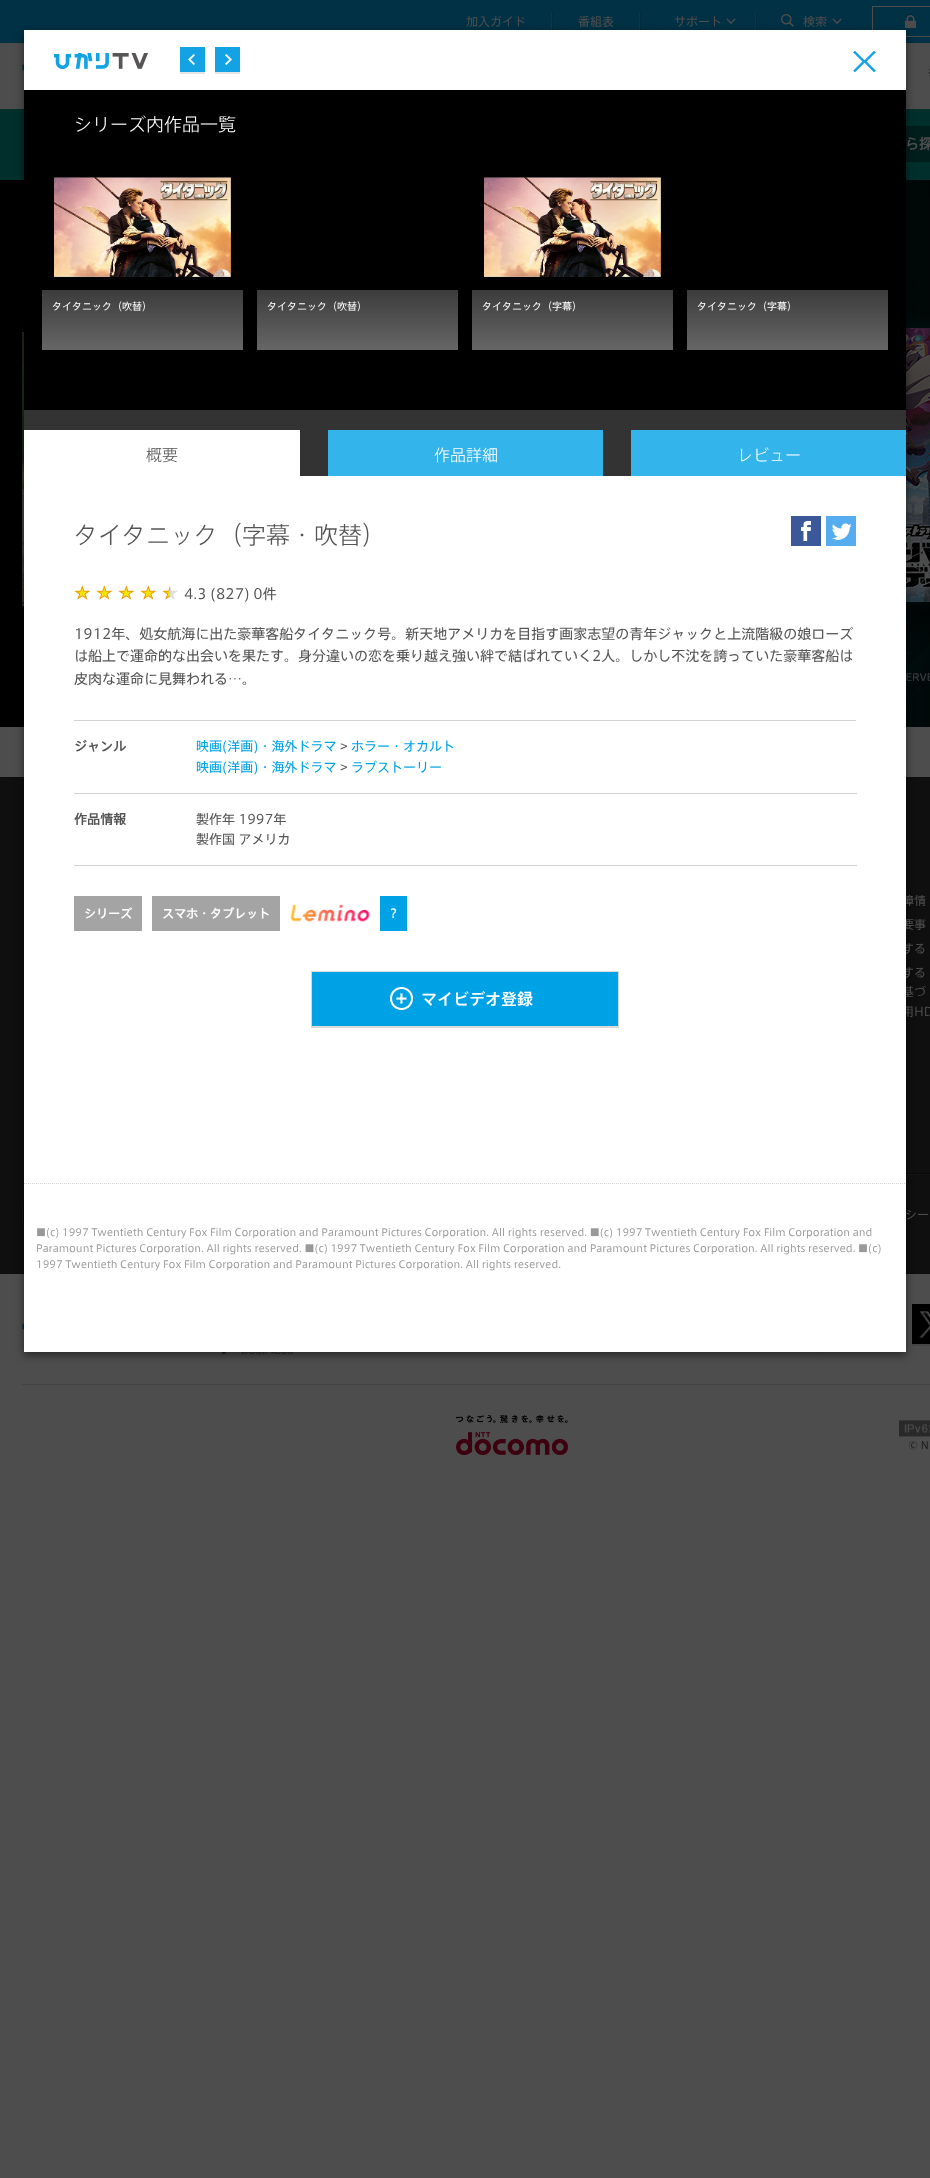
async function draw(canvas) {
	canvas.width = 930;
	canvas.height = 2178;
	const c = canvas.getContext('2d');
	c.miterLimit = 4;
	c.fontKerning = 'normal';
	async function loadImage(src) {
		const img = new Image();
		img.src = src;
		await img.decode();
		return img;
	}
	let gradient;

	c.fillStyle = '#4d4d4d';
	c.fillRect(0, 0, 930, 2178);
	c.fillStyle = '#003145';
	c.fillRect(0, 0, 930, 43);
	c.fillStyle = '#0f3647';
	c.fillRect(551, 12, 1, 19);
	c.font = '12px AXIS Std';
	c.fillStyle = '#4d4d4d';
	c.fillText('加入ガイド', 466, 26);
	c.fillStyle = '#0f3647';
	c.fillRect(639, 12, 1, 19);
	c.fillStyle = '#002c3e';
	c.fillRect(552, 12, 1, 19);
	c.fillStyle = '#4d4d4d';
	c.fillText('番組表', 578, 26);
	c.drawImage(await loadImage('img1.png'), 726, 18, 10, 7);
	c.fillStyle = '#0f3647';
	c.fillRect(755, 12, 1, 19);
	c.fillStyle = '#002c3e';
	c.fillRect(640, 12, 1, 19);
	c.fillStyle = '#4d4d4d';
	c.fillText('サポート', 674, 26);
	c.fillStyle = '#002c3e';
	c.fillRect(906, 37, 24, 1);
	c.strokeStyle = '#4d4d4d';
	c.strokeRect(872.5, 6.5, 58, 30);
	c.drawImage(await loadImage('img2.png'), 904, 14, 13, 14);
	c.drawImage(await loadImage('img3.png'), 781, 14, 13, 13);
	c.drawImage(await loadImage('img1.png'), 832, 18, 10, 7);
	c.fillRect(756, 12, 1, 19);
	c.fillStyle = '#4d4d4d';
	c.fillText('検索', 803, 26);
	c.drawImage(await loadImage('img4.png'), 22, 64, 2, 7);
	c.drawImage(await loadImage('img5.png'), 929, 68, 1, 8);
	for (const [x, y, w, h, color] of [
		[0, 109, 930, 71, '#002f2c'],
		[906, 126, 24, 36, '#011e1c'],
		[0, 180, 22, 547, '#000'],
	]) {
		c.fillStyle = color;
		c.fillRect(x, y, w, h);
	}
	c.drawImage(await loadImage('img18.png'), 22, 180, 908, 547);
	for (const [x, y, w, h, color] of [
		[0, 777, 930, 497, '#0f0f0f'],
		[22, 1173, 908, 1, '#090909'],
		[22, 1174, 908, 1, '#151515'],
		[22, 1205, 1, 19, '#151515'],
		[23, 1205, 1, 19, '#090909'],
	]) {
		c.fillStyle = color;
		c.fillRect(x, y, w, h);
	}
	c.beginPath();
	c.moveTo(816.5, 1294);
	c.lineTo(816.5, 1354);
	c.strokeStyle = '#3f3f3f';
	c.setLineDash([1, 1]);
	c.stroke();
	c.drawImage(await loadImage('img19.png'), 22, 1323, 2, 7);
	c.drawImage(await loadImage('img20.png'), 222, 1352, 72, 3);
	c.fillStyle = '#454545';
	c.fillRect(912, 1344, 18, 2);
	c.drawImage(await loadImage('img21.png'), 912, 1304, 18, 40);
	c.fillStyle = '#00000080';
	c.filter = 'blur(4.5px)';
	c.beginPath();
	c.rect(24, 33, 882, 1322);
	c.fill();
	c.filter = 'none';
	c.fillStyle = '#4d4d4d';
	for (const [text, x, y] of [
		['障情', 902, 905],
		['要事', 902, 929],
		['する', 902, 953],
		['する', 902, 977],
		['基づ', 902, 996],
		['用HD', 902, 1016],
	]) {
		c.fillText(text, x, y);
	}
	c.fillStyle = '#fff';
	c.fillRect(24, 30, 882, 1322);
	c.drawImage(await loadImage('img6.png'), 54, 53, 94, 16);
	c.drawImage(await loadImage('img7.png'), 180, 47, 25, 27);
	c.drawImage(await loadImage('img8.png'), 215, 47, 25, 27);
	c.drawImage(await loadImage('img9.png'), 853, 51, 23, 21);
	c.fillStyle = '#000';
	c.fillRect(24, 90, 882, 320);
	c.font = '300 18px AXIS Std';
	c.fillStyle = '#fff';
	c.fillText('シリーズ内作品一覧', 74, 131);
	c.drawImage(await loadImage('img10.png'), 54, 177, 177, 100);
	gradient = c.createLinearGradient(143, 290, 143, 350);
	gradient.addColorStop(0, '#3c3c3c');
	gradient.addColorStop(1, '#666');
	c.fillStyle = gradient;
	c.fillRect(42, 290, 201, 60);
	c.font = '10px AXIS Std';
	c.fillStyle = '#fff';
	c.fillText('タイタニック（吹替）', 52, 310);
	gradient = c.createLinearGradient(358, 290, 358, 350);
	gradient.addColorStop(0, '#3c3c3c');
	gradient.addColorStop(1, '#666');
	c.fillStyle = gradient;
	c.fillRect(257, 290, 201, 60);
	c.fillStyle = '#fff';
	c.fillText('タイタニック（吹替）', 267, 310);
	c.drawImage(await loadImage('img11.png'), 484, 177, 177, 100);
	gradient = c.createLinearGradient(573, 290, 573, 350);
	gradient.addColorStop(0, '#3c3c3c');
	gradient.addColorStop(1, '#666');
	c.fillStyle = gradient;
	c.fillRect(472, 290, 201, 60);
	c.fillStyle = '#fff';
	c.fillText('タイタニック（字幕）', 482, 310);
	gradient = c.createLinearGradient(788, 290, 788, 350);
	gradient.addColorStop(0, '#3c3c3c');
	gradient.addColorStop(1, '#666');
	c.fillStyle = gradient;
	c.fillRect(687, 290, 201, 60);
	c.fillStyle = '#fff';
	c.fillText('タイタニック（字幕）', 697, 310);
	c.fillStyle = '#333';
	c.fillRect(24, 410, 882, 66);
	c.fillStyle = '#fff';
	c.fillRect(24, 430, 276, 46);
	c.font = '300 16px AXIS Std';
	c.fillStyle = '#555';
	c.fillText('概要', 146, 461);
	c.fillStyle = '#33b4eb';
	c.fillRect(328, 430, 275, 46);
	c.fillStyle = '#fff';
	c.fillText('作品詳細', 434, 461);
	c.fillStyle = '#33b4eb';
	c.fillRect(631, 430, 275, 46);
	c.fillStyle = '#fff';
	c.fillText('レビュー', 737, 461);
	c.font = '300 24px AXIS Std';
	c.fillStyle = '#555';
	c.fillText('タイタニック（字幕・吹替）', 74, 544);
	c.drawImage(await loadImage('img12.png'), 791, 516, 30, 30);
	c.drawImage(await loadImage('img13.png'), 826, 516, 30, 30);
	c.drawImage(await loadImage('img14.png'), 74, 585, 17, 15);
	c.drawImage(await loadImage('img14.png'), 96, 585, 17, 15);
	c.drawImage(await loadImage('img14.png'), 118, 585, 17, 15);
	c.drawImage(await loadImage('img14.png'), 140, 585, 17, 15);
	c.drawImage(await loadImage('img15.png'), 162, 586, 17, 14);
	c.font = '14px AXIS Std';
	for (const [text, x, y] of [
		['4.3 (827) 0件', 184, 599],
		['1912年、処女航海に出た豪華客船タイタニック号。新天地アメリカを目指す画家志望の青年ジャックと上流階級の娘ローズ', 74, 639],
		['は船上で運命的な出会いを果たす。身分違いの恋を乗り越え強い絆で結ばれていく2人。しかし不沈を誇っていた豪華客船は', 74, 661],
		['皮肉な運命に見舞われる…。', 74, 684],
	]) {
		c.fillText(text, x, y);
	}
	c.fillStyle = '#d3d2d2';
	c.fillRect(74, 720, 782, 1);
	c.font = 'bold 13px AXIS Std';
	c.fillStyle = '#555';
	c.fillText('ジャンル', 74, 751);
	c.fillStyle = '#d3d2d2';
	c.fillRect(74, 793, 783, 1);
	c.font = '13px AXIS Std';
	c.fillStyle = '#00a2e6';
	c.fillText('映画(洋画)・海外ドラマ', 196, 751);
	c.fillStyle = '#555';
	c.fillText('>', 340, 751);
	c.fillStyle = '#00a2e6';
	c.fillText('ホラー・オカルト', 351, 751);
	c.fillText('映画(洋画)・海外ドラマ', 196, 772);
	c.fillStyle = '#555';
	c.fillText('>', 340, 772);
	c.fillStyle = '#00a2e6';
	c.fillText('ラブストーリー', 351, 772);
	c.font = 'bold 13px AXIS Std';
	c.fillStyle = '#555';
	c.fillText('作品情報', 74, 824);
	c.fillStyle = '#d3d2d2';
	c.fillRect(74, 865, 783, 1);
	c.font = '13px AXIS Std';
	c.fillStyle = '#555';
	c.fillText('製作年 1997年', 196, 824);
	c.fillText('製作国 アメリカ', 196, 844);
	c.fillStyle = '#a4a4a4';
	c.fillRect(74, 896, 68, 35);
	c.font = 'bold 12px AXIS Std';
	c.fillStyle = '#fff';
	c.fillText('シリーズ', 84, 918);
	c.fillStyle = '#a4a4a4';
	c.fillRect(152, 896, 128, 35);
	c.fillStyle = '#fff';
	c.fillText('スマホ・タブレット', 162, 918);
	c.drawImage(await loadImage('img16.png'), 290, 904, 80, 18);
	c.fillStyle = '#00a2e6';
	c.fillRect(380, 896, 27, 35);
	c.fillStyle = '#fff';
	c.fillText('?', 390, 918);
	for (const [x, y, w, h, color] of [
		[312, 972, 306, 54, '#00a2e6'],
		[311, 971, 308, 1, '#d9d9d9'],
		[618, 971, 1, 57, '#d9d9d9'],
		[311, 1026, 308, 2, '#d9d9d9'],
		[311, 971, 1, 57, '#d9d9d9'],
	]) {
		c.fillStyle = color;
		c.fillRect(x, y, w, h);
	}
	c.drawImage(await loadImage('img17.png'), 390, 987, 23, 23);
	c.font = '500 16px AXIS Std';
	c.fillStyle = '#fff';
	c.fillText('マイビデオ登録', 421, 1005);
	c.beginPath();
	c.moveTo(24, 1183.5);
	c.lineTo(906, 1183.5);
	c.strokeStyle = '#d3d2d2';
	c.stroke();
	c.font = '10px AXIS Std';
	c.fillStyle = '#999';
	for (const [text, x, y] of [
		['■(c) 1997 Twentieth Century Fox Film Corporation and Paramount Pictures Corporation. All rights reserved. ■(c) 1997 Twentieth Century Fox Film Corporation and', 36, 1236],
		['Paramount Pictures Corporation. All rights reserved. ■(c) 1997 Twentieth Century Fox Film Corporation and Paramount Pictures Corporation. All rights reserved. ■(c)', 36, 1252],
		['1997 Twentieth Century Fox Film Corporation and Paramount Pictures Corporation. All rights reserved.', 36, 1268],
	]) {
		c.fillText(text, x, y);
	}
	c.font = 'bold 14px AXIS Std';
	c.fillStyle = '#4d4d4d';
	c.fillText('ら探', 905, 149);
	c.font = '12px AXIS Std';
	c.fillText('シー', 905, 1219);
	c.fillStyle = '#444';
	c.fillRect(22, 1384, 908, 1);
	c.drawImage(await loadImage('img22.png'), 456, 1415, 112, 40);
	c.drawImage(await loadImage('img23.png'), 899, 1420, 31, 17);
	c.font = '10px AXIS Std';
	c.fillStyle = '#1a1a1a';
	c.fillText('© N', 908, 1449);
}

draw(document.querySelector('canvas'));
